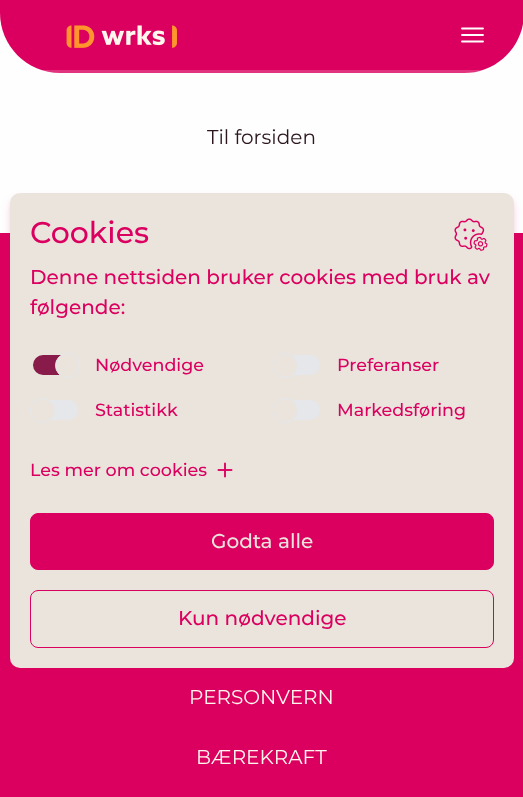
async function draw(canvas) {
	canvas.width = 523;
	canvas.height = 797;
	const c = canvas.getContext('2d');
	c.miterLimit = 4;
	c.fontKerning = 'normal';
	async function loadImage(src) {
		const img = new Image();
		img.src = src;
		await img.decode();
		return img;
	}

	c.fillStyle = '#fefefe';
	c.fillRect(0, 0, 523, 797);
	c.fillStyle = '#db005f';
	c.beginPath();
	c.moveTo(0, 0);
	c.lineTo(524, 0);
	c.lineTo(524, 13);
	c.bezierCurveTo(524, 46, 497, 73, 464, 73);
	c.lineTo(60, 73);
	c.bezierCurveTo(27, 73, 0, 46, 0, 13);
	c.closePath();
	c.fill();
	c.fillStyle = '#ffffff33';
	c.fillRect(41, 70, 442, 3);
	c.drawImage(await loadImage('img1.png'), 66, 25, 111, 23);
	c.beginPath();
	c.moveTo(462, 28.5);
	c.lineTo(483, 28.5);
	c.moveTo(462, 35);
	c.lineTo(483, 35);
	c.moveTo(462, 41.5);
	c.lineTo(483, 41.5);
	c.strokeStyle = '#fff';
	c.lineWidth = 1.9;
	c.lineCap = 'round';
	c.lineJoin = 'round';
	c.stroke();
	c.font = '20px Montserrat';
	c.fillStyle = '#2c1620';
	c.fillText('Til forsiden', 207, 144);
	c.fillStyle = '#db005f';
	c.fillRect(0, 233, 523, 564);
	c.fillStyle = '#db005f33';
	c.filter = 'blur(2.5px)';
	c.beginPath();
	c.roundRect(13, 198, 498, 470, 8);
	c.fill();
	c.filter = 'none';
	c.filter = 'blur(4px)';
	c.beginPath();
	c.roundRect(11, 199, 502, 472, 9);
	c.fill();
	c.filter = 'none';
	c.fillStyle = '#eae4dd';
	c.beginPath();
	c.roundRect(10, 193, 504, 475, 10);
	c.fill();
	c.drawImage(await loadImage('img2.png'), 454, 218, 34, 33);
	c.font = '500 30px Montserrat';
	c.fillStyle = '#db005f';
	c.fillText('Cookies', 30, 243);
	c.font = '500 20px Montserrat';
	c.fillText('Denne nettsiden bruker cookies med bruk av', 30, 284);
	c.fillText('følgende:', 30, 314);
	c.fillStyle = '#881b4a';
	c.beginPath();
	c.roundRect(33, 355, 45, 20, 10);
	c.fill();
	c.fillStyle = '#eae4dd';
	c.beginPath();
	c.arc(67.5, 365.5, 12, 0, 2 * Math.PI);
	c.fill();
	c.strokeStyle = '#e5e7eb';
	c.lineWidth = 1;
	c.stroke();
	c.font = '500 17.5px Montserrat';
	c.fillStyle = '#db005f';
	c.fillText('Nødvendige', 95, 371);
	c.fillStyle = '#e5e7eb';
	c.beginPath();
	c.roundRect(275, 355, 45, 20, 10);
	c.fill();
	c.fillStyle = '#eae4dd';
	c.beginPath();
	c.arc(285.5, 365.5, 12, 0, 2 * Math.PI);
	c.fill();
	c.stroke();
	c.fillStyle = '#db005f';
	c.fillText('Preferanser', 337, 371);
	c.fillStyle = '#e5e7eb';
	c.beginPath();
	c.roundRect(33, 400, 45, 20, 10);
	c.fill();
	c.fillStyle = '#eae4dd';
	c.beginPath();
	c.arc(42.5, 410.5, 12, 0, 2 * Math.PI);
	c.fill();
	c.stroke();
	c.fillStyle = '#db005f';
	c.fillText('Statistikk', 95, 416);
	c.fillStyle = '#e5e7eb';
	c.beginPath();
	c.roundRect(275, 400, 45, 20, 10);
	c.fill();
	c.fillStyle = '#eae4dd';
	c.beginPath();
	c.arc(285.5, 410.5, 12, 0, 2 * Math.PI);
	c.fill();
	c.stroke();
	c.fillStyle = '#db005f';
	c.fillText('Markedsføring', 337, 416);
	c.fillText('Les mer om cookies', 30, 476);
	c.drawImage(await loadImage('img3.png'), 217, 462, 16, 16);
	c.beginPath();
	c.roundRect(30.5, 513.5, 463, 56, 7.5);
	c.fill();
	c.strokeStyle = '#db005f';
	c.lineJoin = 'miter';
	c.stroke();
	c.font = '500 20px Montserrat';
	c.fillStyle = '#eae4dd';
	c.fillText('Godta alle', 211, 548);
	c.beginPath();
	c.roundRect(30.5, 590.5, 463, 57, 7.5);
	c.stroke();
	c.fillStyle = '#db005f';
	c.fillText('Kun nødvendige', 178, 625);
	c.font = '20px Montserrat';
	c.fillStyle = '#fff7ee';
	c.fillText('PERSONVERN', 189, 704);
	c.fillText('BÆREKRAFT', 196, 764);
}

draw(document.querySelector('canvas'));
